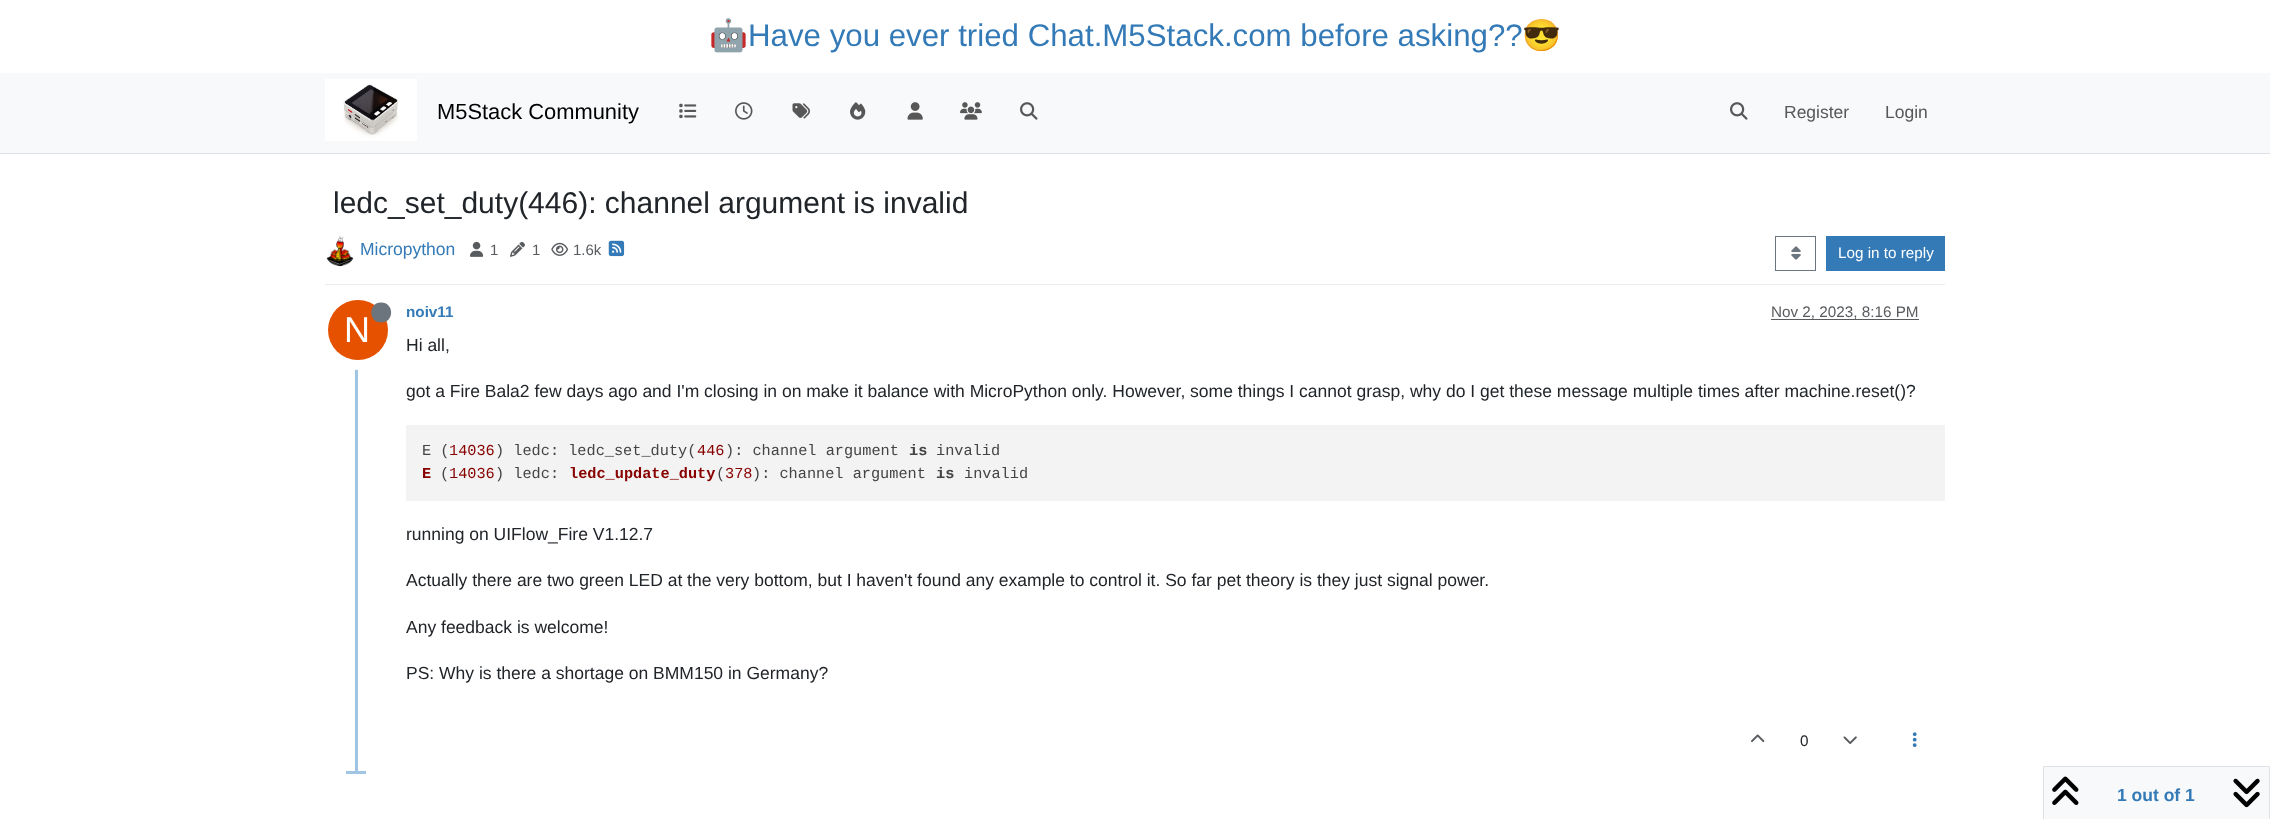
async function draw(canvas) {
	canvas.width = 2270;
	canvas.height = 819;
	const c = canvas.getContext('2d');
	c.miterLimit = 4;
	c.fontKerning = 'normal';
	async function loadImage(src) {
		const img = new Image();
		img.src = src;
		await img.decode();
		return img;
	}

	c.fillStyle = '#fff';
	c.fillRect(0, 0, 2270, 819);
	c.font = '31.25px Noto Color Emoji';
	c.fillStyle = '#337ab7';
	c.fillText('🤖', 709, 46);
	c.font = '31.25px Liberation Sans';
	c.fillText('Have you ever tried Chat.M5Stack.com before asking??', 748, 46);
	c.font = '31.25px Noto Color Emoji';
	c.fillText('😎', 1522, 46);
	c.fillStyle = '#f8f9fa';
	c.fillRect(0, 73, 2270, 80);
	c.fillStyle = '#dee2e6';
	c.fillRect(0, 153, 2270, 1);
	c.drawImage(await loadImage('img1.png'), 325, 79, 92, 62);
	c.font = '21.9px Liberation Sans';
	c.fillStyle = '#000';
	c.fillText('M5Stack Community', 437, 119);
	c.drawImage(await loadImage('img2.png'), 679, 103, 18, 16);
	c.drawImage(await loadImage('img3.png'), 735, 102, 18, 18);
	c.drawImage(await loadImage('img4.png'), 792, 103, 18, 16);
	c.drawImage(await loadImage('img5.png'), 850, 102, 16, 18);
	c.drawImage(await loadImage('img6.png'), 907, 102, 16, 18);
	c.drawImage(await loadImage('img7.png'), 960, 102, 22, 18);
	c.drawImage(await loadImage('img8.png'), 1020, 102, 18, 18);
	c.drawImage(await loadImage('img8.png'), 1730, 102, 18, 18);
	c.font = '17.5px Liberation Sans';
	c.fillStyle = '#575758';
	c.fillText('Register', 1784, 118);
	c.fillText('Login', 1885, 118);
	c.font = '30px Liberation Sans';
	c.fillStyle = '#212529';
	c.fillText('ledc_set_duty(446): channel argument is invalid', 333, 213);
	c.fillStyle = '#e9ecef';
	c.fillRect(325, 284, 1620, 1);
	c.drawImage(await loadImage('img9.png'), 326, 236, 28, 31);
	c.font = '17.5px Liberation Sans';
	c.fillStyle = '#337ab7';
	c.fillText('Micropython', 360, 255);
	c.drawImage(await loadImage('img10.png'), 470, 241, 14, 16);
	c.font = '15px Liberation Sans';
	c.fillStyle = '#595c5f';
	c.fillText('1', 490, 255);
	c.drawImage(await loadImage('img11.png'), 510, 241, 15, 16);
	c.fillText('1', 532, 255);
	c.drawImage(await loadImage('img12.png'), 551, 242, 18, 14);
	c.fillText('1.6k', 573, 255);
	c.drawImage(await loadImage('img13.png'), 608, 240, 17, 17);
	c.strokeStyle = '#6c757d';
	c.strokeRect(1775.5, 236.5, 40, 34);
	c.drawImage(await loadImage('img14.png'), 1791, 246, 10, 14);
	c.fillStyle = '#337ab7';
	c.fillRect(1826, 236, 119, 35);
	c.font = '15.25px Liberation Sans';
	c.fillStyle = '#fff';
	c.fillText('Log in to reply', 1838, 258);
	c.fillStyle = '#a0c4e4';
	c.fillRect(355, 298, 3, 476);
	c.font = 'bold 15.25px Liberation Sans';
	c.fillStyle = '#337ab7';
	c.fillText('noiv11', 406, 317);
	c.font = '15.25px Liberation Sans';
	c.fillStyle = '#595c5f';
	c.fillText('Nov 2, 2023, 8:16 PM', 1771, 317);
	c.fillRect(1771, 319, 148, 1);
	c.beginPath();
	c.arc(358, 330, 35, 0, 2 * Math.PI);
	c.strokeStyle = '#fff';
	c.lineWidth = 10;
	c.stroke();
	c.fillStyle = '#e65100';
	c.beginPath();
	c.arc(358, 330, 30, 0, 2 * Math.PI);
	c.fill();
	c.fillStyle = '#6c757d';
	c.beginPath();
	c.moveTo(381, 322.5);
	c.bezierCurveTo(394.5, 322.5, 394.5, 302.5, 381, 302.5);
	c.bezierCurveTo(368, 302.5, 368, 322.5, 381, 322.5);
	c.closePath();
	c.fill();
	c.font = '36px Liberation Sans';
	c.fillStyle = '#fff';
	c.fillText('N', 344, 342);
	c.font = '17.5px Liberation Sans';
	c.fillStyle = '#212529';
	c.fillText('Hi all,', 406, 351);
	c.fillText('got a Fire Bala2 few days ago and I\'m closing in on make it balance with MicroPython only. However, some things I cannot grasp, why do I get these message multiple times after machine.reset()?', 406, 397);
	c.fillStyle = '#f3f3f3';
	c.fillRect(406, 425, 1539, 76);
	c.font = '15.25px Liberation Mono';
	c.fillStyle = '#444';
	c.fillText('E (', 422, 455);
	c.fillStyle = '#800';
	c.fillText('14036', 449, 455);
	c.fillStyle = '#444';
	c.fillText(') ledc: ledc_set_duty(', 495, 455);
	c.fillStyle = '#800';
	c.fillText('446', 697, 455);
	c.fillStyle = '#444';
	c.fillText('): channel argument', 725, 455);
	c.font = 'bold 15.25px Liberation Mono';
	c.fillText('is', 909, 455);
	c.font = '15.25px Liberation Mono';
	c.fillText('invalid', 936, 455);
	c.font = 'bold 15.25px Liberation Mono';
	c.fillStyle = '#800';
	c.fillText('E', 422, 478);
	c.font = '15.25px Liberation Mono';
	c.fillStyle = '#444';
	c.fillText('(', 440, 478);
	c.fillStyle = '#800';
	c.fillText('14036', 449, 478);
	c.fillStyle = '#444';
	c.fillText(') ledc:', 495, 478);
	c.font = 'bold 15.25px Liberation Mono';
	c.fillStyle = '#800';
	c.fillText('ledc_update_duty', 569, 478);
	c.font = '15.25px Liberation Mono';
	c.fillStyle = '#444';
	c.fillText('(', 716, 478);
	c.fillStyle = '#800';
	c.fillText('378', 725, 478);
	c.fillStyle = '#444';
	c.fillText('): channel argument', 752, 478);
	c.font = 'bold 15.25px Liberation Mono';
	c.fillText('is', 936, 478);
	c.font = '15.25px Liberation Mono';
	c.fillText('invalid', 964, 478);
	c.font = '17.5px Liberation Sans';
	c.fillStyle = '#212529';
	for (const [text, x, y] of [
		['running on UIFlow_Fire V1.12.7', 406, 540],
		['Actually there are two green LED at the very bottom, but I haven\'t found any example to control it. So far pet theory is they just signal power.', 406, 586],
		['Any feedback is welcome!', 406, 633],
		['PS: Why is there a shortage on BMM150 in Germany?', 406, 679],
	]) {
		c.fillText(text, x, y);
	}
	c.drawImage(await loadImage('img15.png'), 1751, 734, 14, 9);
	c.font = '15.25px Liberation Sans';
	c.fillText('0', 1800, 746);
	c.drawImage(await loadImage('img16.png'), 1843, 736, 14, 8);
	c.drawImage(await loadImage('img17.png'), 1912, 732, 5, 15);
	c.fillStyle = '#a0c4e4';
	c.fillRect(346, 771, 20, 3);
	c.fillStyle = '#f8f9fa';
	c.beginPath();
	c.rect(2043.5, 766.5, 226, 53);
	c.fill();
	c.strokeStyle = '#dee2e6';
	c.lineWidth = 1;
	c.stroke();
	c.drawImage(await loadImage('img18.png'), 2052, 776, 27, 29);
	c.font = 'bold 17.5px Liberation Sans';
	c.fillStyle = '#337ab7';
	c.fillText('1 out of 1', 2117, 801);
	c.drawImage(await loadImage('img19.png'), 2233, 778, 27, 30);
}

draw(document.querySelector('canvas'));
